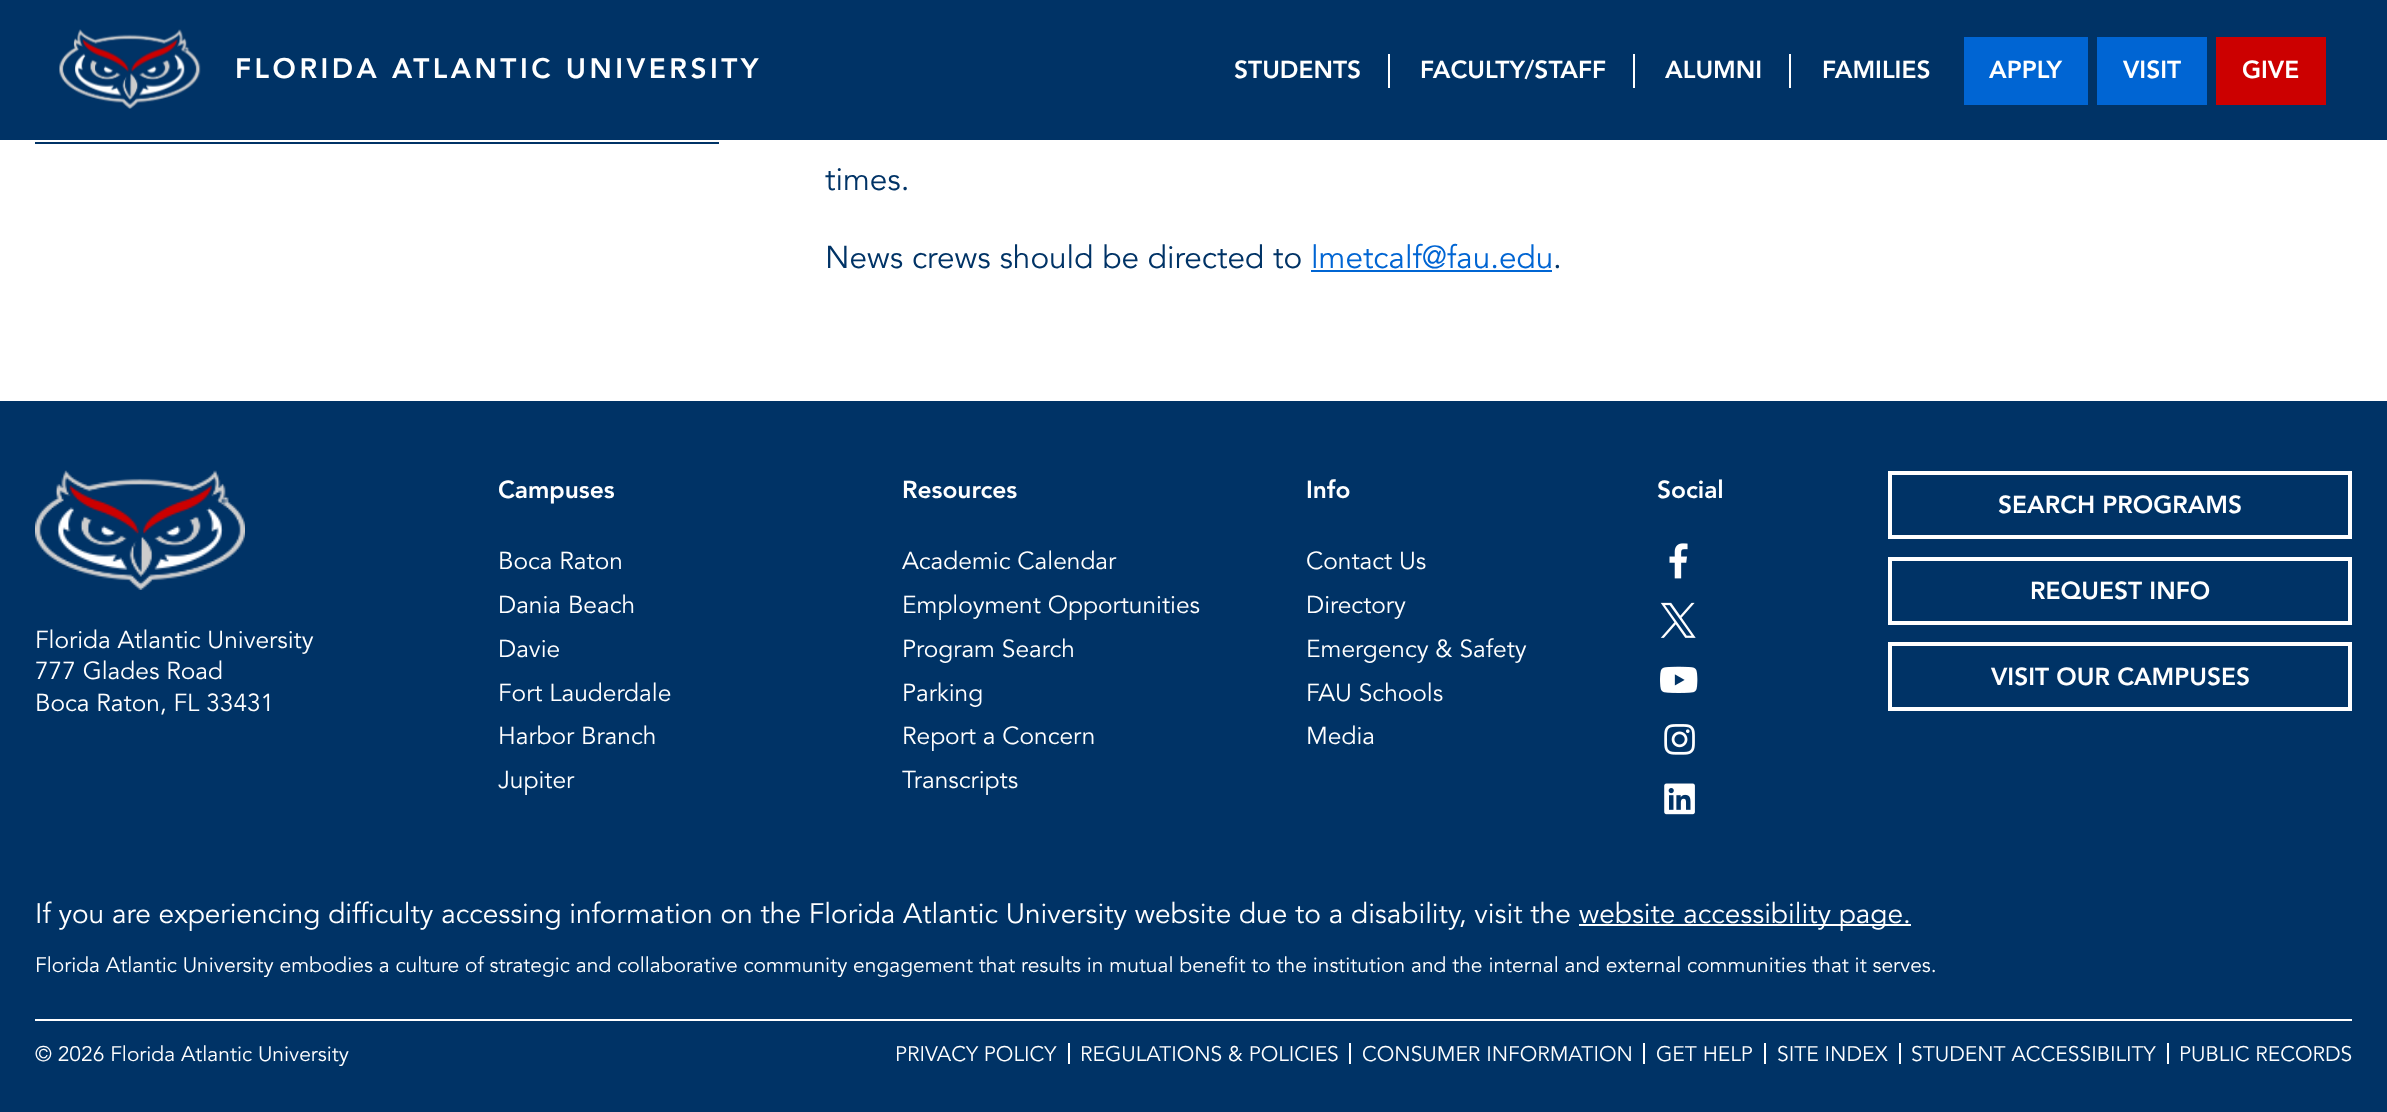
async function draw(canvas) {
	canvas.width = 2387;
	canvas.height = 1112;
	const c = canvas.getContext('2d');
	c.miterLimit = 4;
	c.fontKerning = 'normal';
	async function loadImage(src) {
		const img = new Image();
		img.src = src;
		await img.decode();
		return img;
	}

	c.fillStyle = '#fff';
	c.fillRect(0, 0, 2387, 1112);
	c.fillStyle = '#036';
	c.fillRect(0, 0, 2387, 140);
	c.drawImage(await loadImage('img1.png'), 59, 29, 142, 80);
	c.letterSpacing = '3.5px';
	c.font = '900 28px Avenir';
	c.fillStyle = '#fff';
	c.fillText('FLORIDA ATLANTIC UNIVERSITY', 235, 78);
	c.letterSpacing = '0px';
	c.font = '900 24.5px Avenir';
	c.fillText('STUDENTS', 1234, 78);
	c.fillRect(1388, 54, 2, 34);
	c.fillText('FACULTY/STAFF', 1420, 78);
	c.fillRect(1633, 54, 2, 34);
	c.fillText('ALUMNI', 1665, 78);
	c.fillRect(1789, 54, 2, 34);
	c.fillText('FAMILIES', 1822, 78);
	c.fillStyle = '#0065d3';
	c.fillRect(1964, 37, 124, 68);
	c.fillStyle = '#fff';
	c.fillText('APPLY', 1989, 78);
	c.fillStyle = '#0065d3';
	c.fillRect(2097, 37, 110, 68);
	c.fillStyle = '#fff';
	c.fillText('VISIT', 2123, 78);
	c.fillStyle = '#c00';
	c.fillRect(2216, 37, 110, 68);
	c.fillStyle = '#fff';
	c.fillText('GIVE', 2242, 78);
	c.fillStyle = '#036';
	c.fillRect(35, 142, 684, 2);
	c.font = '31.5px Avenir';
	c.fillText('times.', 825, 190);
	c.fillText('News crews should be directed to', 825, 268);
	c.fillStyle = '#0065d3';
	c.fillText('lmetcalf@fau.edu', 1311, 268);
	c.fillRect(1311, 270, 241, 2);
	c.fillStyle = '#036';
	c.fillText('.', 1553, 268);
	c.fillRect(0, 401, 2387, 711);
	c.font = '900 24.5px Avenir';
	c.fillStyle = '#fff';
	c.fillText('Campuses', 498, 498);
	c.font = '24.5px Avenir';
	for (const [text, x, y] of [
		['Boca Raton', 498, 569],
		['Dania Beach', 498, 613],
		['Davie', 498, 657],
		['Fort Lauderdale', 498, 701],
		['Harbor Branch', 498, 744],
		['Jupiter', 498, 788],
	]) {
		c.fillText(text, x, y);
	}
	c.font = '900 24.5px Avenir';
	c.fillText('Resources', 902, 498);
	c.font = '24.5px Avenir';
	for (const [text, x, y] of [
		['Academic Calendar', 902, 569],
		['Employment Opportunities', 902, 613],
		['Program Search', 902, 657],
		['Parking', 902, 701],
		['Report a Concern', 902, 744],
		['Transcripts', 902, 788],
	]) {
		c.fillText(text, x, y);
	}
	c.font = '900 24.5px Avenir';
	c.fillText('Info', 1306, 498);
	c.font = '24.5px Avenir';
	for (const [text, x, y] of [
		['Contact Us', 1306, 569],
		['Directory', 1306, 613],
		['Emergency & Safety', 1306, 657],
		['FAU Schools', 1306, 701],
		['Media', 1306, 744],
	]) {
		c.fillText(text, x, y);
	}
	c.font = '900 24.5px Avenir';
	c.fillText('Social', 1657, 498);
	c.drawImage(await loadImage('img2.png'), 1669, 543, 19, 36);
	c.drawImage(await loadImage('img3.png'), 1660, 602, 36, 36);
	c.drawImage(await loadImage('img4.png'), 1660, 666, 38, 27);
	c.drawImage(await loadImage('img5.png'), 1664, 724, 31, 31);
	c.drawImage(await loadImage('img6.png'), 1664, 783, 31, 32);
	c.drawImage(await loadImage('img7.png'), 35, 470, 210, 120);
	c.font = '24.5px Avenir';
	for (const [text, x, y] of [
		['Florida Atlantic University', 35, 648],
		['777 Glades Road', 35, 679],
		['Boca Raton, FL 33431', 35, 711],
	]) {
		c.fillText(text, x, y);
	}
	c.strokeStyle = '#fff';
	c.lineWidth = 4;
	c.strokeRect(1890, 473, 460, 64);
	c.font = '900 24.5px Avenir';
	c.fillText('SEARCH PROGRAMS', 1998, 513);
	c.strokeRect(1890, 559, 460, 64);
	c.fillText('REQUEST INFO', 2030, 599);
	c.strokeRect(1890, 644, 460, 65);
	c.fillText('VISIT OUR CAMPUSES', 1991, 685);
	c.fillRect(35, 1019, 2317, 2);
	c.font = '28px Avenir';
	c.fillText('If you are experiencing difficulty accessing information on the Florida Atlantic University website due to a disability, visit the', 35, 923);
	c.fillRect(1579, 924, 332, 2);
	c.fillText('website accessibility page.', 1579, 923);
	c.font = '21px Avenir';
	c.fillText('Florida Atlantic University embodies a culture of strategic and collaborative community engagement that results in mutual benefit to the institution and the internal and external communities that it serves.', 35, 972);
	c.fillText('© 2026 Florida Atlantic University', 35, 1061);
	c.fillRect(1068, 1043, 2, 21);
	c.fillText('PRIVACY POLICY', 895, 1061);
	c.fillRect(1349, 1043, 2, 21);
	c.fillText('REGULATIONS & POLICIES', 1080, 1061);
	c.fillRect(1643, 1043, 2, 21);
	c.fillText('CONSUMER INFORMATION', 1362, 1061);
	c.fillRect(1764, 1043, 2, 21);
	c.fillText('GET HELP', 1656, 1061);
	c.fillRect(1899, 1043, 2, 21);
	c.fillText('SITE INDEX', 1777, 1061);
	c.fillRect(2167, 1043, 2, 21);
	c.fillText('STUDENT ACCESSIBILITY', 1911, 1061);
	c.fillText('PUBLIC RECORDS', 2179, 1061);
}

draw(document.querySelector('canvas'));
